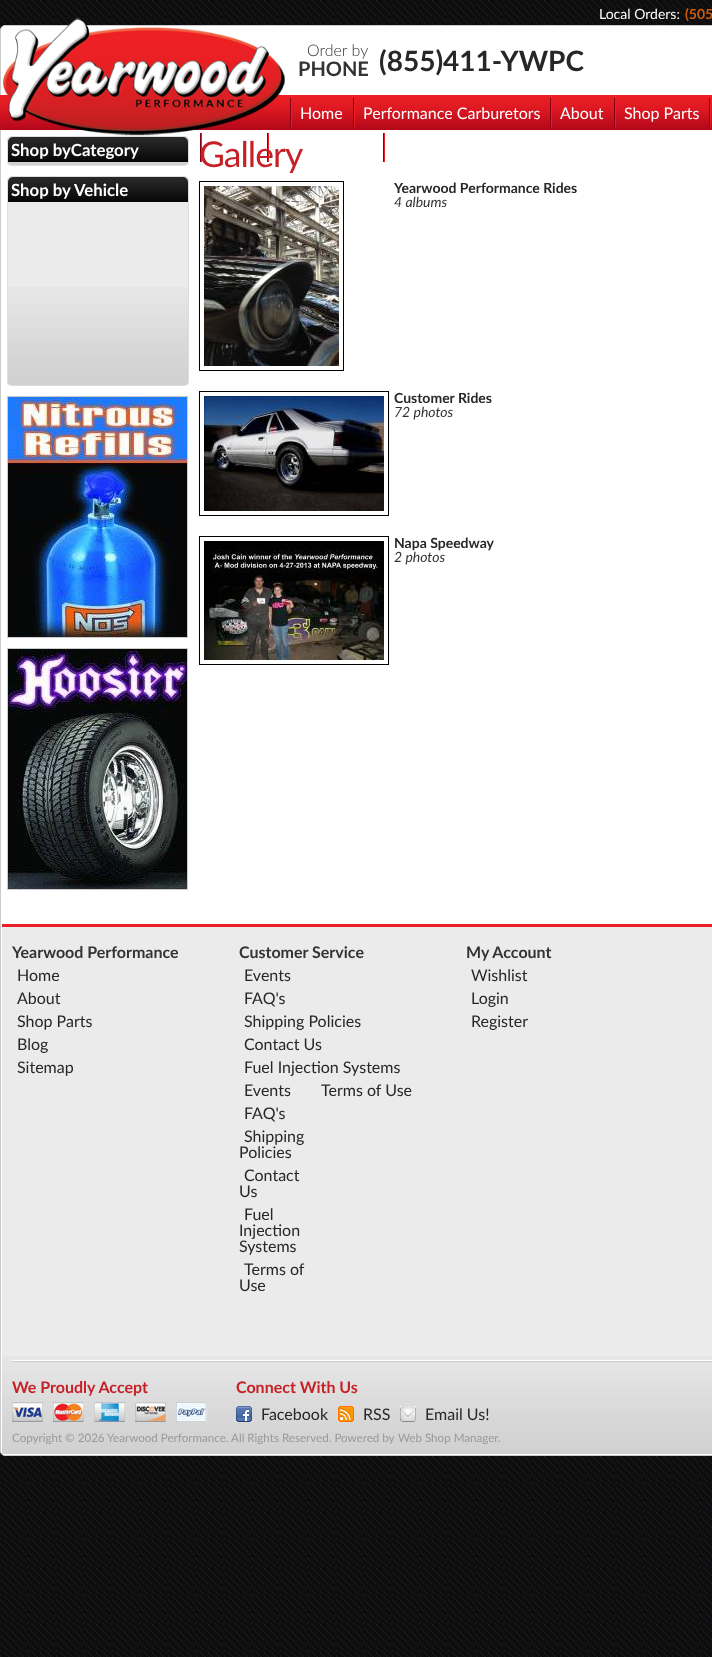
async function draw(canvas) {
	canvas.width = 712;
	canvas.height = 1657;
	const c = canvas.getContext('2d');
	c.miterLimit = 4;
	c.fontKerning = 'normal';
	async function loadImage(src) {
		const img = new Image();
		img.src = src;
		await img.decode();
		return img;
	}

	c.fillStyle = '#fff';
	c.fillRect(0, 0, 712, 1657);
	c.drawImage(await loadImage('img1.png'), 0, 0, 712, 1657);
	c.beginPath();
	c.roundRect(0.5, 25.5, 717, 1430, 4.5);
	c.fill();
	c.strokeStyle = '#ccc';
	c.stroke();
	c.font = '14px Lato';
	c.fillText('Local Orders:', 599, 19);
	c.font = 'bold 14px Lato';
	c.fillStyle = '#cb5f0f';
	c.fillText('(505', 685, 19);
	c.drawImage(await loadImage('img3.png'), 0, 95, 712, 35);
	c.drawImage(await loadImage('img4.png'), 200, 133, 2, 29);
	c.drawImage(await loadImage('img4.png'), 267, 133, 2, 29);
	c.drawImage(await loadImage('img2.png'), 3, 18, 282, 118);
	c.font = '300 16px Lato';
	c.fillStyle = '#333';
	c.fillText('Order by', 307, 56);
	c.font = 'bold 20px Lato';
	c.fillText('PHONE', 298, 76);
	c.font = 'bold 28px Lato';
	c.fillStyle = '#272727';
	c.fillText('(855)411-YWPC', 379, 71);
	c.drawImage(await loadImage('img4.png'), 290, 98, 2, 29);
	c.font = '16px Lato';
	c.fillStyle = '#fff';
	c.fillText('Home', 300, 119);
	c.drawImage(await loadImage('img4.png'), 353, 98, 2, 29);
	c.fillText('Performance Carburetors', 363, 119);
	c.drawImage(await loadImage('img4.png'), 550, 98, 2, 29);
	c.fillText('About', 560, 119);
	c.drawImage(await loadImage('img4.png'), 614, 98, 2, 29);
	c.fillText('Shop Parts', 624, 119);
	c.drawImage(await loadImage('img4.png'), 709, 98, 2, 29);
	c.drawImage(await loadImage('img4.png'), 383, 133, 2, 29);
	c.drawImage(await loadImage('img5.png'), 7, 136, 182, 29);
	c.beginPath();
	c.roundRect(7.5, 136.5, 181, 29, 4.5);
	c.strokeStyle = '#ddd';
	c.stroke();
	c.drawImage(await loadImage('img6.png'), 8, 137, 180, 25);
	c.font = 'bold 16.75px Lato';
	c.fillText('Shop byCategory', 11, 156);
	c.fillStyle = '#ebebeb';
	c.beginPath();
	c.roundRect(7, 176, 182, 210, 5);
	c.fill();
	c.drawImage(await loadImage('img7.png'), 7, 287, 182, 98);
	c.beginPath();
	c.roundRect(7.5, 176.5, 181, 209, 4.5);
	c.stroke();
	c.drawImage(await loadImage('img8.png'), 8, 177, 180, 25);
	c.fillStyle = '#fff';
	c.fillText('Shop by', 11, 196);
	c.fillText('Vehicle', 74, 196);
	c.strokeStyle = '#ccc';
	c.strokeRect(7.5, 396.5, 180, 241);
	c.drawImage(await loadImage('img9.png'), 8, 397, 179, 240);
	c.strokeRect(7.5, 648.5, 180, 241);
	c.drawImage(await loadImage('img10.png'), 8, 649, 179, 240);
	c.letterSpacing = '-1px';
	c.font = '35.5px Lato';
	c.fillStyle = '#c62127';
	c.fillText('Gallery', 199, 167);
	c.strokeStyle = '#000';
	c.strokeRect(199.5, 181.5, 144, 189);
	c.drawImage(await loadImage('img11.png'), 204, 186, 135, 180);
	c.letterSpacing = '0px';
	c.font = 'bold 14px Lato';
	c.fillStyle = '#272727';
	c.fillText('Yearwood Performance Rides', 394, 193);
	c.font = 'italic 14px Lato';
	c.fillStyle = '#333';
	c.fillText('4 albums', 394, 207);
	c.strokeRect(199.5, 391.5, 189, 124);
	c.drawImage(await loadImage('img12.png'), 204, 396, 180, 115);
	c.font = 'bold 14px Lato';
	c.fillStyle = '#272727';
	c.fillText('Customer Rides', 394, 403);
	c.font = 'italic 14px Lato';
	c.fillStyle = '#333';
	c.fillText('72 photos', 394, 417);
	c.strokeRect(199.5, 536.5, 189, 128);
	c.drawImage(await loadImage('img13.png'), 204, 541, 180, 119);
	c.font = 'bold 14px Lato';
	c.fillStyle = '#272727';
	c.fillText('Napa Speedway', 394, 548);
	c.font = 'italic 14px Lato';
	c.fillStyle = '#333';
	c.fillText('2 photos', 394, 562);
	c.fillStyle = '#ebebeb';
	c.fillRect(2, 927, 710, 429);
	c.drawImage(await loadImage('img14.png'), 2, 1356, 710, 98);
	c.fillStyle = '#ed1f24';
	c.fillRect(2, 924, 710, 3);
	c.font = 'bold 16px Lato';
	c.fillStyle = '#333';
	c.fillText('Yearwood Performance', 12, 958);
	c.font = '16px Lato';
	c.fillStyle = '#272727';
	for (const [text, x, y] of [
		['Home', 17, 981],
		['About', 17, 1004],
		['Shop Parts', 17, 1027],
		['Blog', 17, 1050],
		['Sitemap', 17, 1073],
	]) {
		c.fillText(text, x, y);
	}
	c.font = 'bold 16px Lato';
	c.fillStyle = '#333';
	c.fillText('Customer Service', 239, 958);
	c.font = '16px Lato';
	c.fillStyle = '#272727';
	for (const [text, x, y] of [
		['Events', 244, 981],
		['FAQ\'s', 244, 1004],
		['Shipping Policies', 244, 1027],
		['Contact Us', 244, 1050],
		['Fuel Injection Systems', 244, 1073],
		['Events', 244, 1096],
		['FAQ\'s', 244, 1119],
		['Shipping', 244, 1142],
		['Policies', 239, 1158],
		['Contact', 244, 1181],
		['Us', 239, 1197],
		['Fuel', 244, 1220],
		['Injection', 239, 1236],
		['Systems', 239, 1252],
		['Terms of', 244, 1275],
		['Use', 239, 1291],
		['Terms of Use', 321, 1096],
	]) {
		c.fillText(text, x, y);
	}
	c.font = 'bold 16px Lato';
	c.fillStyle = '#333';
	c.fillText('My Account', 466, 958);
	c.font = '16px Lato';
	c.fillStyle = '#272727';
	for (const [text, x, y] of [
		['Wishlist', 471, 981],
		['Login', 471, 1004],
		['Register', 471, 1027],
	]) {
		c.fillText(text, x, y);
	}
	c.fillStyle = '#fff';
	c.fillRect(12, 1360, 700, 1);
	c.fillStyle = '#ccc';
	c.fillRect(12, 1361, 700, 1);
	c.font = 'bold 16px Lato';
	c.fillStyle = '#c62127';
	c.fillText('We Proudly Accept', 12, 1393);
	c.drawImage(await loadImage('img15.png'), 12, 1402, 31, 20);
	c.drawImage(await loadImage('img16.png'), 53, 1402, 31, 20);
	c.drawImage(await loadImage('img17.png'), 94, 1402, 31, 20);
	c.drawImage(await loadImage('img18.png'), 135, 1402, 31, 20);
	c.drawImage(await loadImage('img19.png'), 176, 1402, 31, 20);
	c.fillText('Connect With Us', 236, 1393);
	c.drawImage(await loadImage('img20.png'), 236, 1406, 16, 16);
	c.font = '16px Lato';
	c.fillStyle = '#272727';
	c.fillText('Facebook', 261, 1420);
	c.drawImage(await loadImage('img21.png'), 338, 1406, 16, 16);
	c.fillText('RSS', 363, 1420);
	c.drawImage(await loadImage('img22.png'), 400, 1406, 16, 16);
	c.fillText('Email Us!', 425, 1420);
	c.font = '11.6px Lato';
	c.fillStyle = '#999';
	for (const [text, x, y] of [
		['Copyright © 2026 Yearwood Performance. All Rights Reserved. Powered by', 12, 1442],
		['Web Shop Manager', 398, 1442],
		['.', 498, 1442],
	]) {
		c.fillText(text, x, y);
	}
}

draw(document.querySelector('canvas'));
